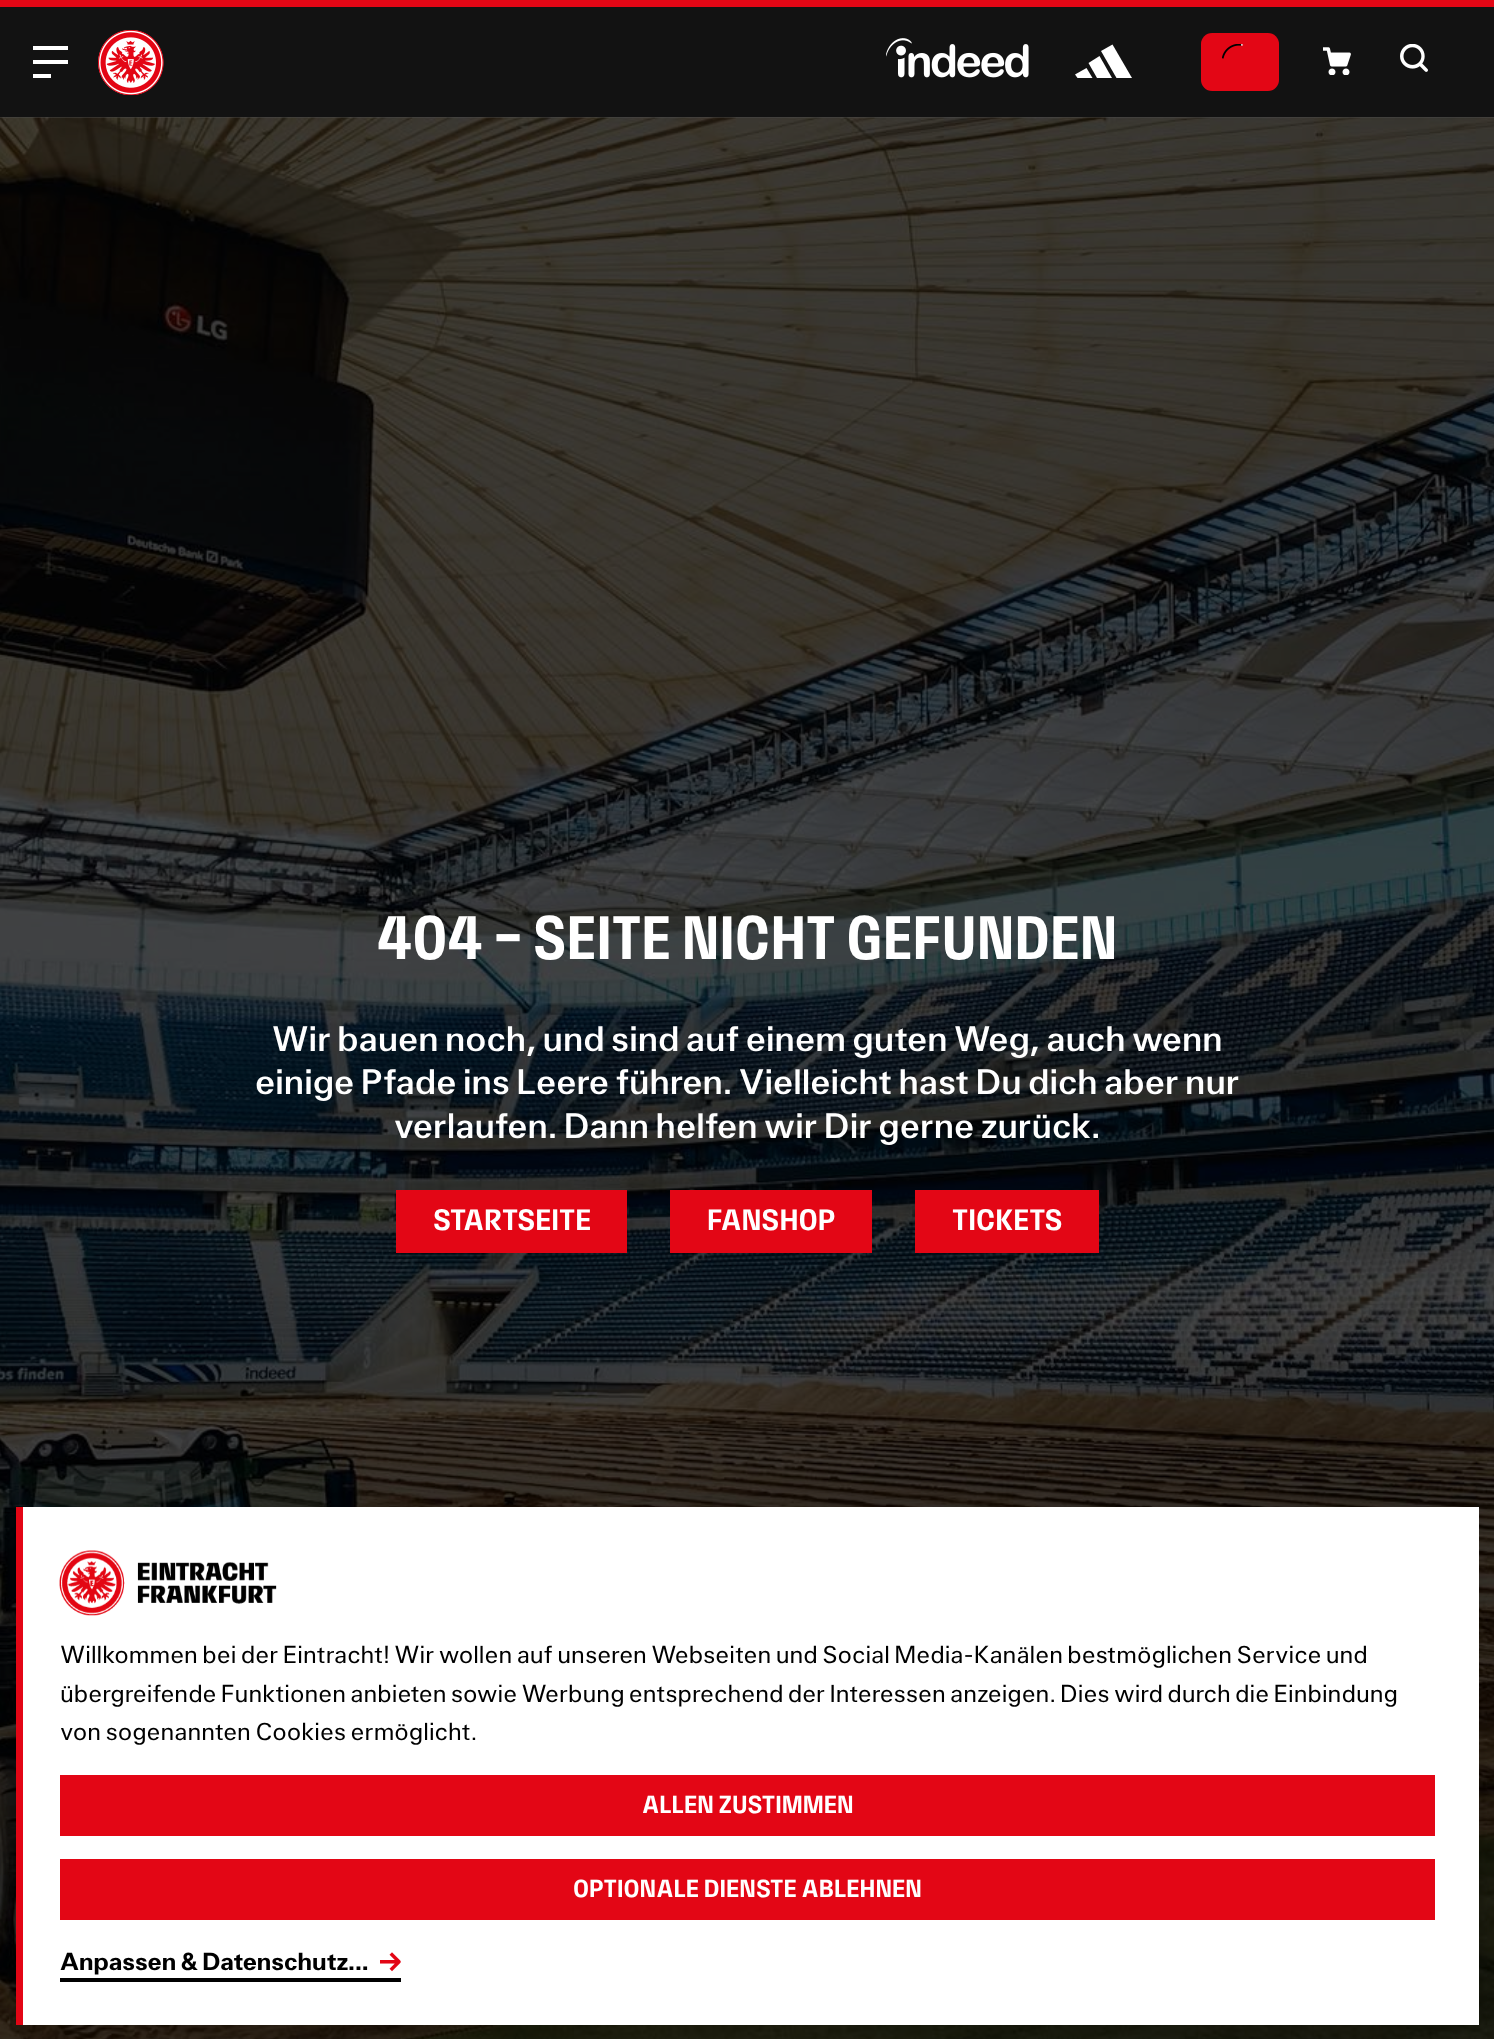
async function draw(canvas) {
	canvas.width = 1494;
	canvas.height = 2039;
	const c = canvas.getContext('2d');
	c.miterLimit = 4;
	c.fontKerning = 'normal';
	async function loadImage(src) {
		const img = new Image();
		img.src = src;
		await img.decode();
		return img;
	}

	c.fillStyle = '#fff';
	c.fillRect(0, 0, 1494, 2039);
	c.fillStyle = '#121212';
	c.fillRect(0, 7, 1494, 110);
	c.fillStyle = '#e30615';
	c.fillRect(0, 0, 1494, 7);
	c.drawImage(await loadImage('img1.png'), 98, 30, 66, 65);
	c.drawImage(await loadImage('img2.png'), 886, 38, 143, 40);
	c.fillStyle = '#fff';
	c.beginPath();
	c.moveTo(1092.5, 78);
	c.lineTo(1077.5, 78);
	c.lineTo(1075, 74.5);
	c.lineTo(1086.5, 68);
	c.closePath();
	c.fill();
	c.beginPath();
	c.moveTo(1112, 78);
	c.lineTo(1097, 78);
	c.lineTo(1088.5, 63);
	c.lineTo(1099.5, 56);
	c.closePath();
	c.fill();
	c.beginPath();
	c.moveTo(1132, 78);
	c.lineTo(1116.5, 78);
	c.lineTo(1101, 51);
	c.lineTo(1112.5, 44.5);
	c.closePath();
	c.fill();
	c.fillStyle = '#e30615';
	c.beginPath();
	c.roundRect(1201, 33, 78, 58, 11);
	c.fill();
	c.drawImage(await loadImage('img3.png'), 1222, 44, 21, 15);
	c.drawImage(await loadImage('img4.png'), 1323, 47, 28, 28);
	c.drawImage(await loadImage('img5.png'), 1400, 44, 28, 28);
	for (const [x, y, w, h, color] of [
		[33, 46, 35, 4, '#fff'],
		[33, 60, 35, 4, '#fff'],
		[33, 74, 18, 4, '#fff'],
	]) {
		c.fillStyle = color;
		c.fillRect(x, y, w, h);
	}
	c.drawImage(await loadImage('img6.png'), 0, 117, 1494, 1922);
	c.fillStyle = '#000000b3';
	c.fillRect(0, 117, 1494, 1922);
	c.font = '60.5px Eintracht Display';
	c.fillStyle = '#fff';
	c.fillText('404 – SEITE NICHT GEFUNDEN', 377, 959);
	c.font = '500 35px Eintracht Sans';
	for (const [text, x, y] of [
		['Wir bauen noch, und sind auf einem guten Weg, auch wenn', 272, 1051],
		['einige Pfade ins Leere führen. Vielleicht hast Du dich aber nur', 255, 1094],
		['verlaufen. Dann helfen wir Dir gerne zurück.', 394, 1138],
	]) {
		c.fillText(text, x, y);
	}
	c.fillStyle = '#e30615';
	c.fillRect(396, 1190, 231, 63);
	c.font = '29.25px "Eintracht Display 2"';
	c.fillStyle = '#fff';
	c.fillText('Startseite', 433, 1230);
	c.fillStyle = '#e30615';
	c.fillRect(670, 1190, 202, 63);
	c.fillStyle = '#fff';
	c.fillText('Fanshop', 707, 1230);
	c.fillStyle = '#e30615';
	c.fillRect(915, 1190, 184, 63);
	c.fillStyle = '#fff';
	c.fillText('Tickets', 952, 1230);
	c.fillStyle = '#00000040';
	c.filter = 'blur(44px)';
	c.beginPath();
	c.rect(16, 1507, 1463, 518);
	c.fill();
	c.filter = 'none';
	c.fillStyle = '#fff';
	c.fillRect(23, 1507, 1456, 518);
	c.fillStyle = '#e30615';
	c.fillRect(16, 1507, 7, 518);
	c.drawImage(await loadImage('img7.png'), 59, 1550, 218, 66);
	c.wordSpacing = '-0.1px';
	c.font = '24.32px Eintracht Sans';
	c.fillStyle = '#000';
	c.fillText('Willkommen bei der Eintracht! Wir wollen auf unseren Webseiten und Social Media-Kanälen bestmöglichen Service und', 60, 1663);
	c.wordSpacing = '-0.2px';
	c.fillText('übergreifende Funktionen anbieten sowie Werbung entsprechend der Interessen anzeigen. Dies wird durch die Einbindung', 60, 1702);
	c.wordSpacing = '0px';
	c.fillText('von sogenannten Cookies ermöglicht.', 60, 1740);
	c.fillStyle = '#e30615';
	c.fillRect(60, 1775, 1375, 61);
	c.font = '24.32px "Eintracht Display 2"';
	c.fillStyle = '#fff';
	c.fillText('Allen zustimmen', 642, 1813);
	c.fillStyle = '#e30615';
	c.fillRect(60, 1859, 1375, 61);
	c.fillStyle = '#fff';
	c.fillText('Optionale Dienste ablehnen', 573, 1897);
	c.drawImage(await loadImage('img8.png'), 380, 1952, 21, 20);
	c.font = 'bold 24.32px Eintracht Sans';
	c.fillStyle = '#000';
	c.fillText('Anpassen & Datenschutz', 60, 1970);
	c.fillText('...', 348, 1970);
	c.fillRect(60, 1978, 341, 4);
}

draw(document.querySelector('canvas'));
